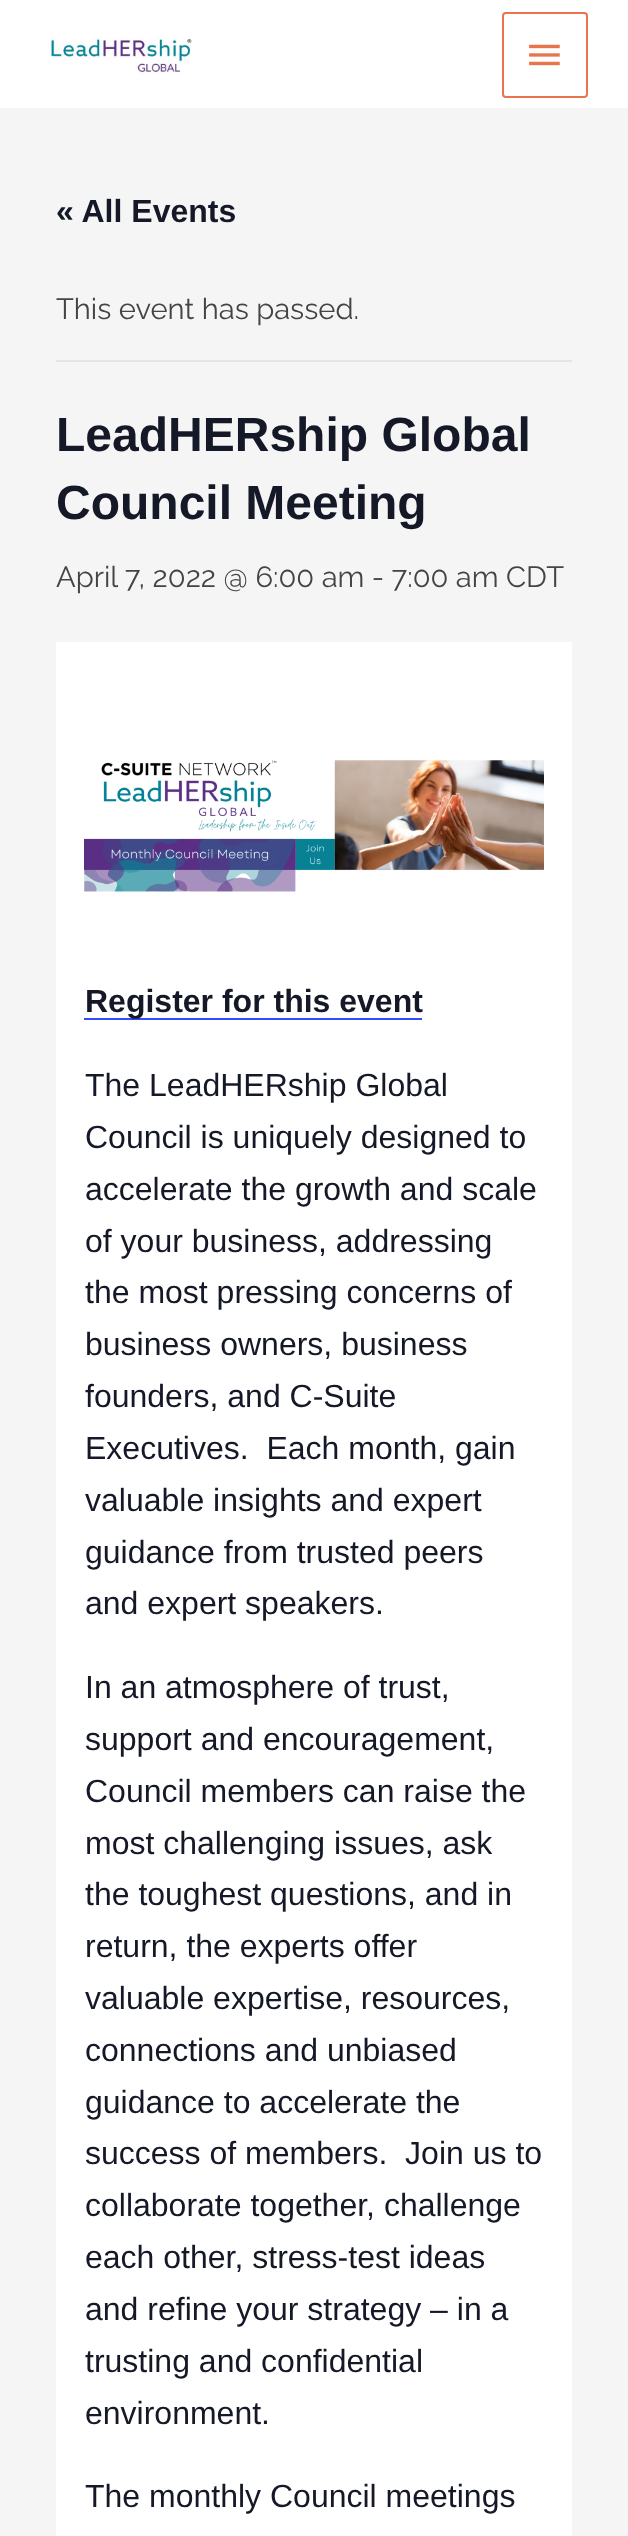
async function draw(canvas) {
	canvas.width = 628;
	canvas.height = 2536;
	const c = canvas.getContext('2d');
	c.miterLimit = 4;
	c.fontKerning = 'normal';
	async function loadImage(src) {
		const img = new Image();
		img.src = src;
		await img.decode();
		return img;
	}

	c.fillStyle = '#f5f5f5';
	c.fillRect(0, 0, 628, 2536);
	c.fillStyle = '#fff';
	c.fillRect(0, 0, 628, 108);
	c.drawImage(await loadImage('img1.png'), 50, 36, 143, 39);
	c.beginPath();
	c.roundRect(503, 13, 84, 84, 3);
	c.strokeStyle = '#e9744b';
	c.lineWidth = 2;
	c.stroke();
	c.drawImage(await loadImage('img2.png'), 529, 44, 31, 22);
	c.font = 'bold 32px Liberation Sans';
	c.fillStyle = '#141827';
	c.fillText('« All Events', 56, 222);
	c.fillStyle = '#e4e4e4';
	c.fillRect(56, 360, 516, 2);
	c.font = '29.2px Raleway';
	c.fillStyle = '#444';
	c.fillText('This event has passed.', 56, 319);
	c.font = 'bold 48px Liberation Sans';
	c.fillStyle = '#141827';
	c.fillText('LeadHERship Global', 56, 451);
	c.fillText('Council Meeting', 56, 519);
	c.font = '29.2px Raleway';
	c.fillStyle = '#444';
	c.fillText('April 7, 2022 @ 6:00 am - 7:00 am CDT', 56, 587);
	c.fillStyle = '#fff';
	c.fillRect(56, 642, 516, 1894);
	c.drawImage(await loadImage('img3.png'), 84, 760, 460, 132);
	c.fillStyle = '#334aff';
	c.fillRect(84, 1018, 338, 2);
	c.font = 'bold 32px Liberation Sans';
	c.fillStyle = '#141827';
	c.fillText('Register for this event', 85, 1012);
	c.font = '32px Liberation Sans';
	for (const [text, x, y] of [
		['The LeadHERship Global', 85, 1096],
		['Council is uniquely designed to', 85, 1148],
		['accelerate the growth and scale', 85, 1200],
		['of your business, addressing', 85, 1252],
		['the most pressing concerns of', 85, 1303],
		['business owners, business', 85, 1355],
		['founders, and C-Suite', 85, 1407],
		['Executives.  Each month, gain', 85, 1459],
		['valuable insights and expert', 85, 1511],
		['guidance from trusted peers', 85, 1563],
		['and expert speakers.', 85, 1614],
		['In an atmosphere of trust,', 85, 1698],
		['support and encouragement,', 85, 1750],
		['Council members can raise the', 85, 1802],
		['most challenging issues, ask', 85, 1854],
		['the toughest questions, and in', 85, 1905],
		['return, the experts offer', 85, 1957],
		['valuable expertise, resources,', 85, 2009],
		['connections and unbiased', 85, 2061],
		['guidance to accelerate the', 85, 2113],
		['success of members.  Join us to', 85, 2164],
		['collaborate together, challenge', 85, 2216],
		['each other, stress-test ideas', 85, 2268],
		['and refine your strategy – in a', 85, 2320],
		['trusting and confidential', 85, 2372],
		['environment.', 85, 2424],
		['The monthly Council meetings', 85, 2507],
	]) {
		c.fillText(text, x, y);
	}
}

draw(document.querySelector('canvas'));
